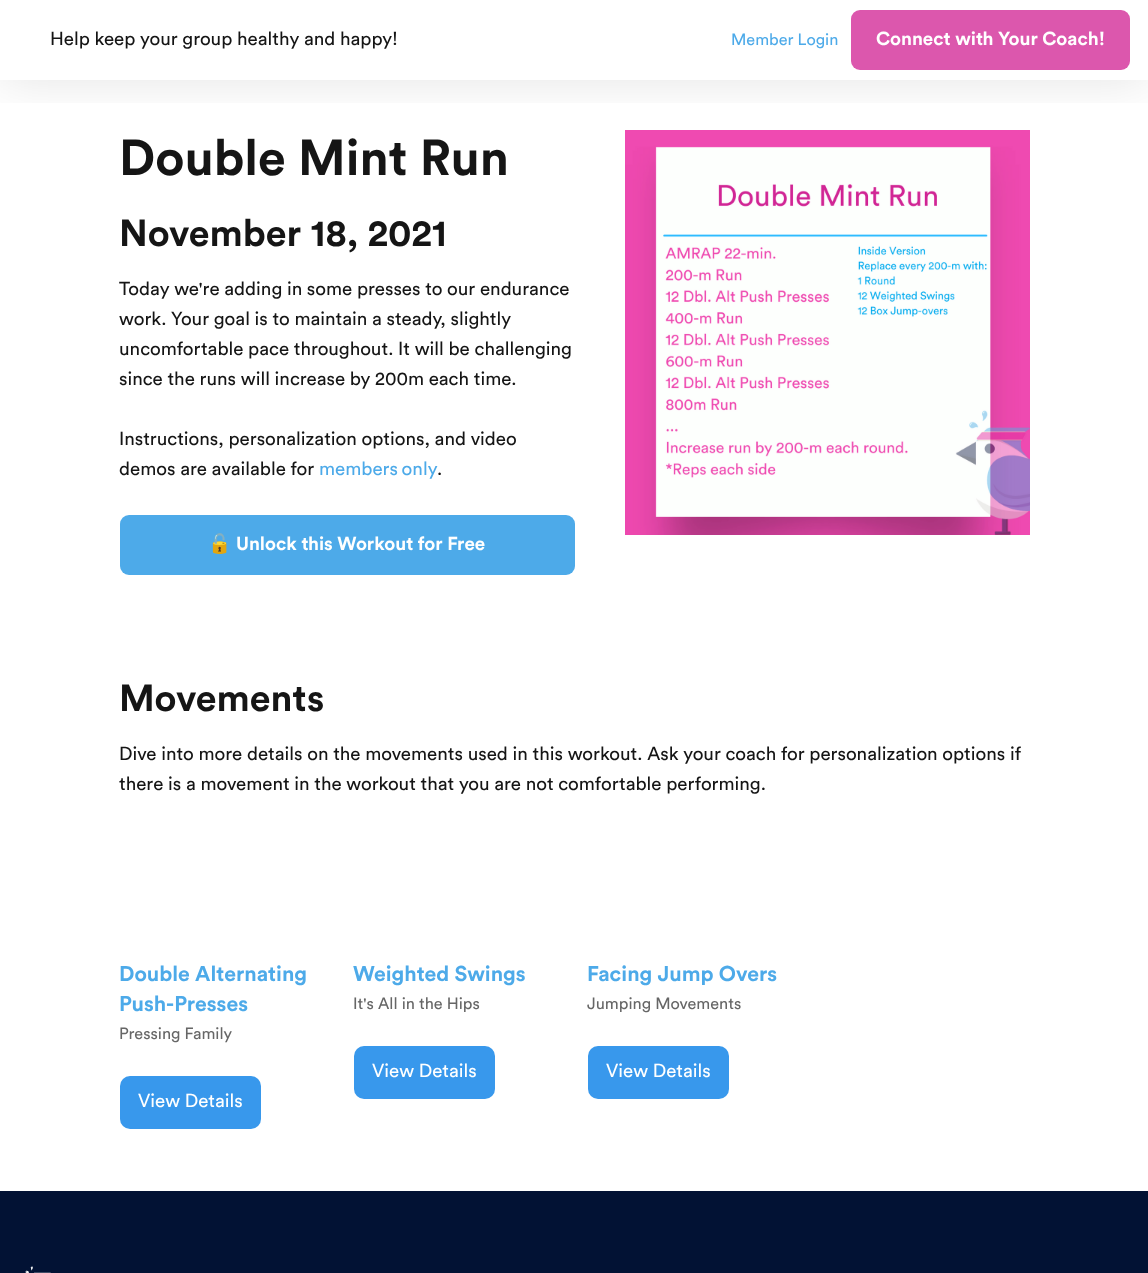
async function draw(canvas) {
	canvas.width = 1148;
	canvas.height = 1273;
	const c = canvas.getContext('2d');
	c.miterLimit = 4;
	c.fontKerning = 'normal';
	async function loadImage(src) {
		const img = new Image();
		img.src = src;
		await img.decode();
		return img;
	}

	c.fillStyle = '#fff';
	c.fillRect(0, 0, 1148, 1273);
	c.drawImage(await loadImage('img1.png'), 625, 130, 405, 405);
	c.save();
	c.beginPath();
	c.rect(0, 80, 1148, 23);
	c.clip();
	c.fillStyle = '#0000001c';
	c.filter = 'blur(25px)';
	c.beginPath();
	c.rect(0, 0, 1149, 80);
	c.fill();
	c.filter = 'none';
	c.restore();
	c.font = '18.75px Circular';
	c.fillStyle = '#151515';
	c.fillText('Help keep your group healthy and happy!', 50, 45);
	c.font = '16.25px Circular';
	c.fillStyle = '#4daae9';
	c.fillText('Member Login', 731, 45);
	c.fillStyle = '#dc57ad';
	c.beginPath();
	c.roundRect(851, 10, 279, 60, 9);
	c.fill();
	c.font = 'bold 18.75px Circular';
	c.fillStyle = '#fff';
	c.fillText('Connect with Your Coach!', 876, 45);
	c.font = 'bold 50px Circular';
	c.fillStyle = '#151515';
	c.fillText('Double Mint Run', 119, 175);
	c.font = 'bold 37.5px Circular';
	c.fillText('November 18, 2021', 119, 246);
	c.font = '18.75px Circular';
	for (const [text, x, y] of [
		['Today we\'re adding in some presses to our endurance', 119, 295],
		['work. Your goal is to maintain a steady, slightly', 119, 325],
		['uncomfortable pace throughout. It will be challenging', 119, 355],
		['since the runs will increase by 200m each time.', 119, 385],
		['Instructions, personalization options, and video', 119, 445],
		['demos are available for', 119, 475],
	]) {
		c.fillText(text, x, y);
	}
	c.wordSpacing = '-1px';
	c.fillStyle = '#4daae9';
	c.fillText('members only', 319, 475);
	c.wordSpacing = '0px';
	c.fillStyle = '#151515';
	c.fillText('.', 437, 475);
	c.fillStyle = '#4daae9';
	c.beginPath();
	c.roundRect(120, 515, 455, 60, 9);
	c.fill();
	c.font = 'bold 18.75px Noto Color Emoji';
	c.fillStyle = '#fff';
	c.fillText('🔓', 208, 550);
	c.font = 'bold 18.75px Circular';
	c.fillText('Unlock this Workout for Free', 236, 550);
	c.font = 'bold 37.5px Circular';
	c.fillStyle = '#151515';
	c.fillText('Movements', 119, 711);
	c.font = '18.75px Circular';
	c.fillText('Dive into more details on the movements used in this workout. Ask your coach for personalization options if', 119, 760);
	c.fillText('there is a movement in the workout that you are not comfortable performing.', 119, 790);
	c.font = 'bold 21.25px Circular';
	c.fillStyle = '#4daae9';
	c.fillText('Double Alternating', 119, 981);
	c.fillText('Push-Presses', 119, 1011);
	c.font = '16.25px Circular';
	c.fillStyle = '#666';
	c.fillText('Pressing Family', 119, 1039);
	c.fillStyle = '#3898ec';
	c.beginPath();
	c.roundRect(120, 1076, 141, 53, 10);
	c.fill();
	c.font = '18.75px Circular';
	c.fillStyle = '#fff';
	c.fillText('View Details', 138, 1107);
	c.font = 'bold 21.25px Circular';
	c.fillStyle = '#4daae9';
	c.fillText('Weighted Swings', 353, 981);
	c.font = '16.25px Circular';
	c.fillStyle = '#666';
	c.fillText('It\'s All in the Hips', 353, 1009);
	c.fillStyle = '#3898ec';
	c.beginPath();
	c.roundRect(354, 1046, 141, 53, 10);
	c.fill();
	c.font = '18.75px Circular';
	c.fillStyle = '#fff';
	c.fillText('View Details', 372, 1077);
	c.font = 'bold 21.25px Circular';
	c.fillStyle = '#4daae9';
	c.fillText('Facing Jump Overs', 587, 981);
	c.font = '16.25px Circular';
	c.fillStyle = '#666';
	c.fillText('Jumping Movements', 587, 1009);
	c.fillStyle = '#3898ec';
	c.beginPath();
	c.roundRect(588, 1046, 141, 53, 10);
	c.fill();
	c.font = '18.75px Circular';
	c.fillStyle = '#fff';
	c.fillText('View Details', 606, 1077);
	c.fillStyle = '#021234';
	c.fillRect(0, 1191, 1148, 82);
	c.drawImage(await loadImage('img2.png'), 25, 1266, 26, 7);
}

draw(document.querySelector('canvas'));
